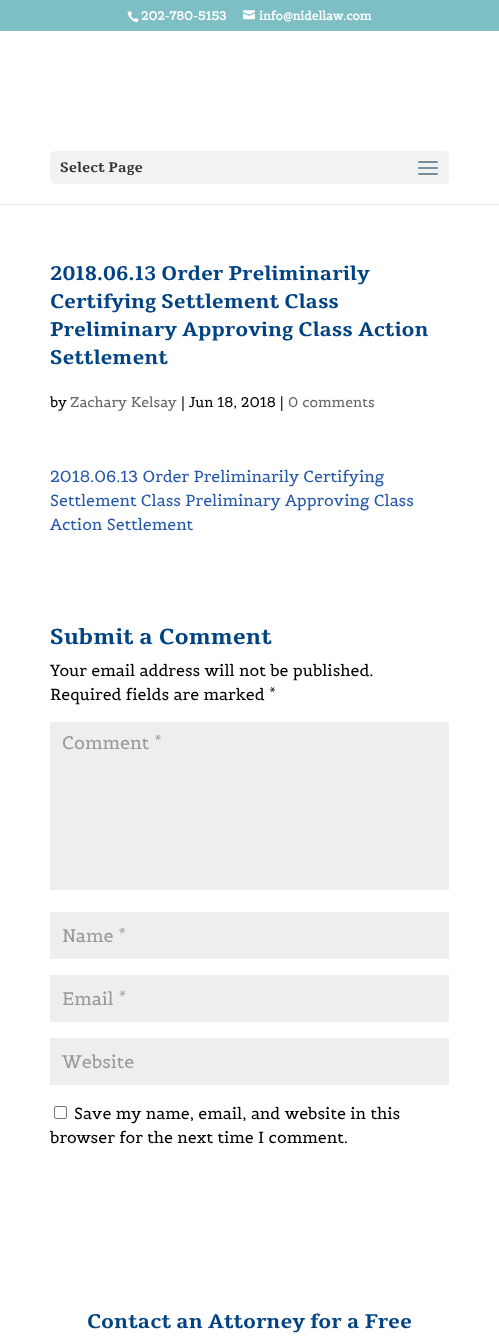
async function draw(canvas) {
	canvas.width = 499;
	canvas.height = 1340;
	const c = canvas.getContext('2d');
	c.miterLimit = 4;
	c.fontKerning = 'normal';
	async function loadImage(src) {
		const img = new Image();
		img.src = src;
		await img.decode();
		return img;
	}

	c.fillStyle = '#fff';
	c.fillRect(0, 0, 499, 1340);
	c.fillStyle = '#7ebec5';
	c.fillRect(0, 0, 499, 31);
	c.drawImage(await loadImage('img1.png'), 127, 11, 12, 12);
	c.font = 'bold 12px Belgrano';
	c.fillStyle = '#fff';
	c.fillText('202-780-5153', 141, 20);
	c.drawImage(await loadImage('img2.png'), 243, 10, 12, 10);
	c.fillText('info@nidellaw.com', 259, 20);
	c.fillStyle = '#e6e6e6';
	c.fillRect(0, 204, 499, 1);
	c.fillStyle = '#f2f2f2';
	c.beginPath();
	c.roundRect(50, 151, 399, 33, 5);
	c.fill();
	c.font = 'bold 14px Tienne';
	c.fillStyle = '#353535';
	c.fillText('Select Page', 60, 172);
	c.drawImage(await loadImage('img3.png'), 418, 161, 20, 14);
	c.font = 'bold 20px Tienne';
	c.fillStyle = '#014382';
	for (const [text, x, y] of [
		['2018.06.13 Order Preliminarily', 50, 280],
		['Certifying Settlement Class', 50, 308],
		['Preliminary Approving Class Action', 50, 336],
		['Settlement', 50, 364],
	]) {
		c.fillText(text, x, y);
	}
	c.font = '14px Belgrano';
	c.fillStyle = '#000';
	c.fillText('by', 50, 407);
	c.fillStyle = '#666';
	c.fillText('Zachary Kelsay', 70, 407);
	c.fillStyle = '#000';
	c.fillText('| Jun 18, 2018 |', 181, 407);
	c.fillStyle = '#666';
	c.fillText('0 comments', 288, 407);
	c.font = '16px Belgrano';
	c.fillStyle = '#2558aa';
	for (const [text, x, y] of [
		['2018.06.13 Order Preliminarily Certifying', 50, 482],
		['Settlement Class Preliminary Approving Class', 50, 506],
		['Action Settlement', 50, 530],
	]) {
		c.fillText(text, x, y);
	}
	c.font = 'bold 22px Tienne';
	c.fillStyle = '#014382';
	c.fillText('Submit a Comment', 50, 644);
	c.font = '16px Belgrano';
	c.fillStyle = '#000';
	c.fillText('Your email address will not be published.', 50, 676);
	c.fillText('Required fields are marked *', 50, 700);
	c.fillStyle = '#eee';
	c.fillRect(50, 722, 399, 168);
	c.font = '18px Belgrano';
	c.fillStyle = '#999';
	c.fillText('Comment *', 62, 749);
	c.fillStyle = '#eee';
	c.fillRect(50, 912, 399, 47);
	c.fillStyle = '#999';
	c.fillText('Name *', 62, 942);
	c.fillStyle = '#eee';
	c.fillRect(50, 975, 399, 47);
	c.fillStyle = '#999';
	c.fillText('Email *', 62, 1005);
	c.fillStyle = '#eee';
	c.fillRect(50, 1038, 399, 47);
	c.fillStyle = '#999';
	c.fillText('Website', 62, 1068);
	c.beginPath();
	c.roundRect(54.5, 1106.5, 12, 12, 1.5);
	c.strokeStyle = '#767676';
	c.stroke();
	c.font = '16px Belgrano';
	c.fillStyle = '#000';
	c.fillText('Save my name, email, and website in this', 74, 1119);
	c.fillText('browser for the next time I comment.', 50, 1143);
	c.font = 'bold 20px Tienne';
	c.fillStyle = '#014382';
	c.fillText('Contact an Attorney for a Free', 87, 1328);
}

draw(document.querySelector('canvas'));
